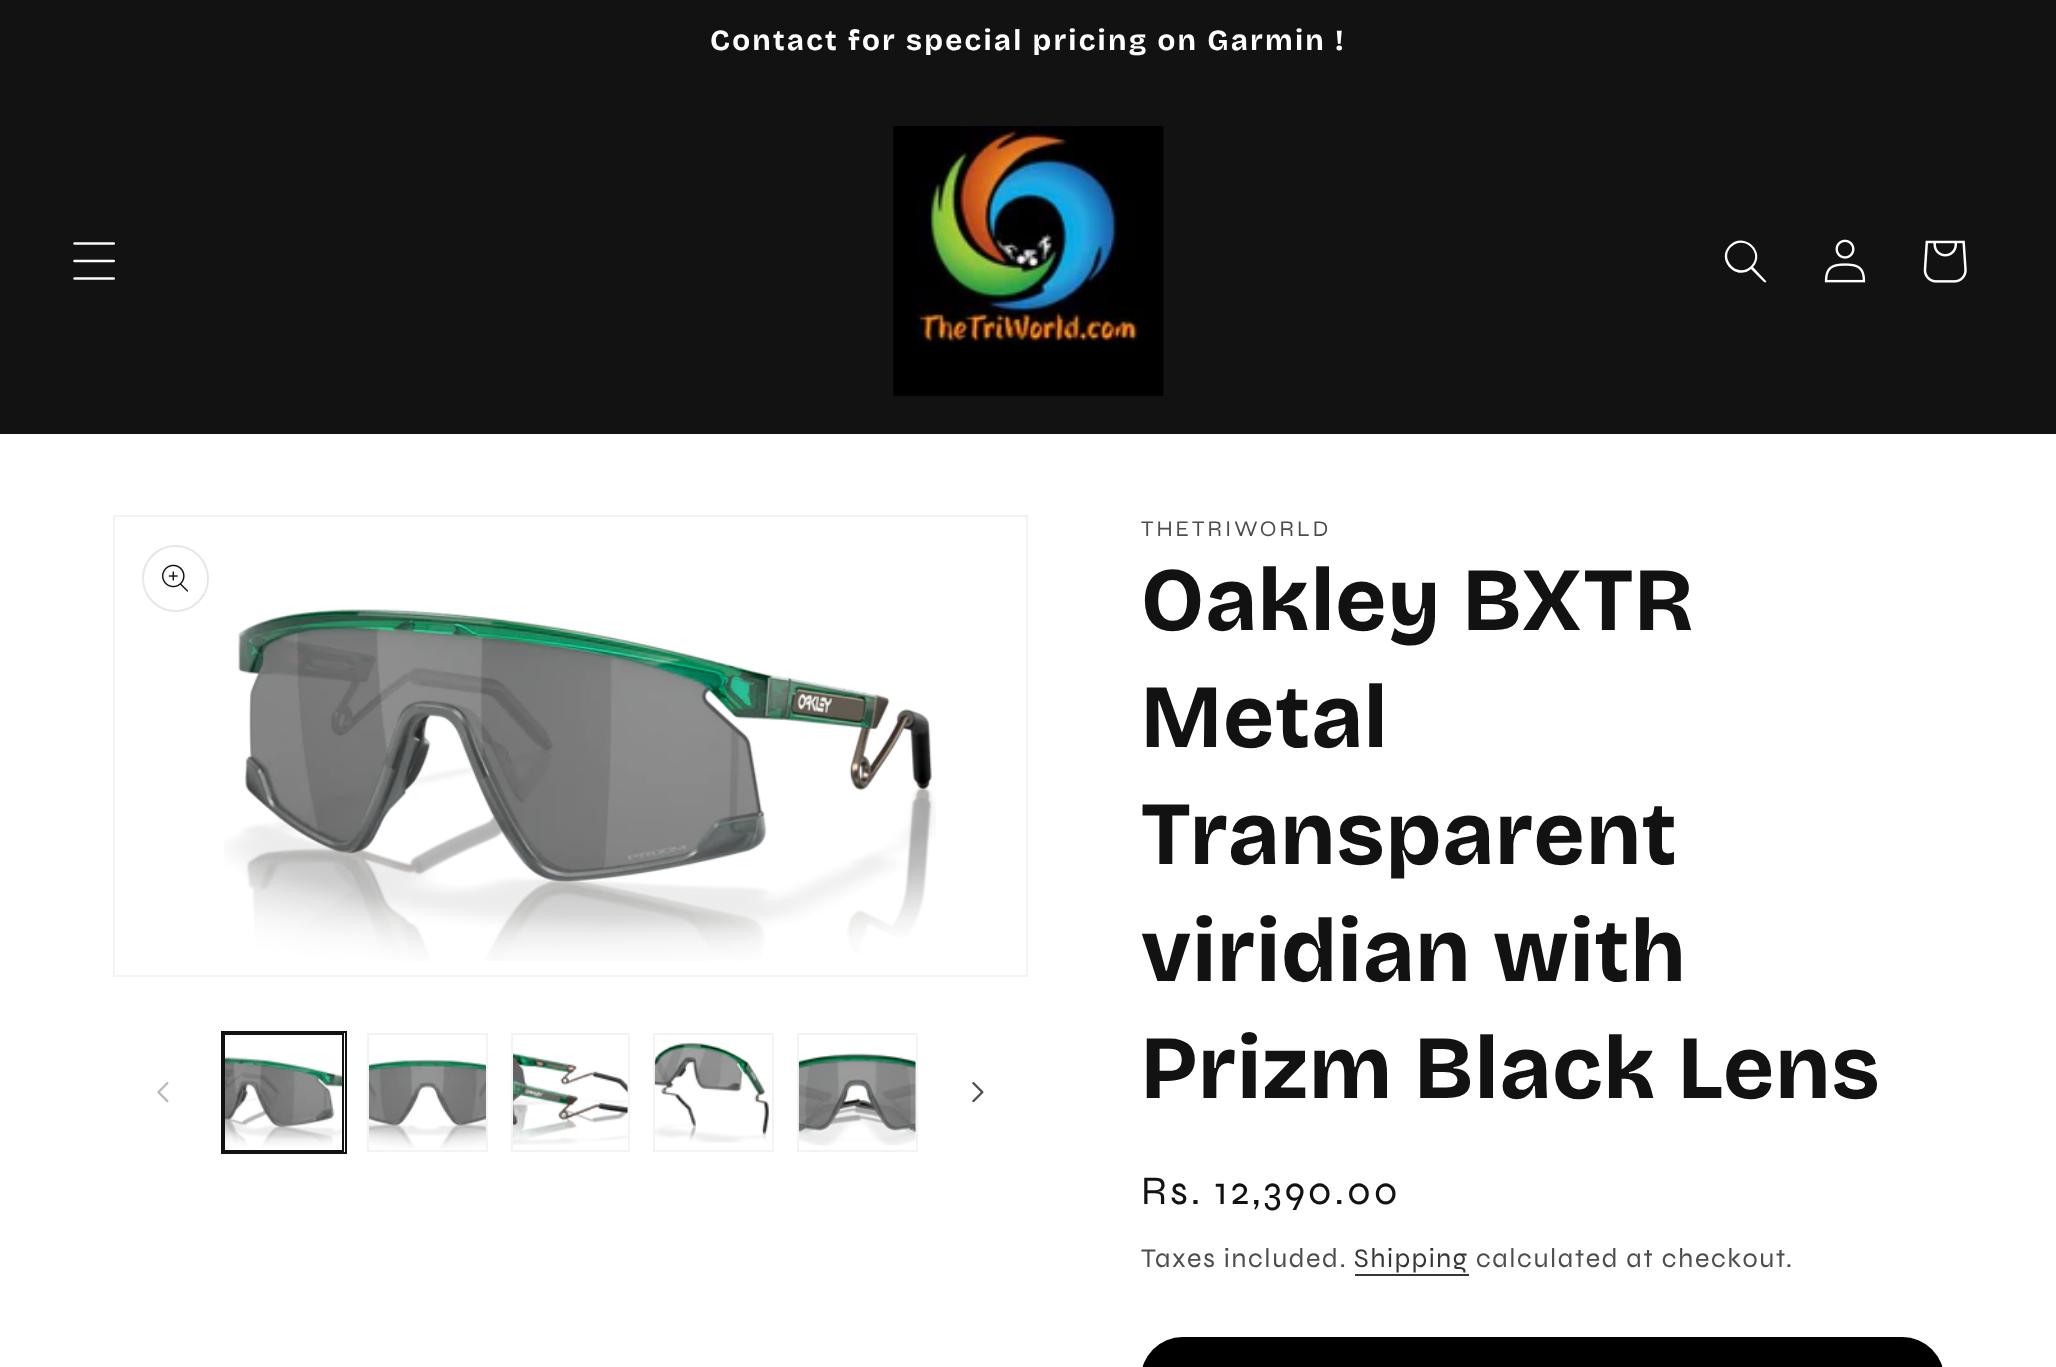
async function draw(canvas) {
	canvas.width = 2056;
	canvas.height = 1367;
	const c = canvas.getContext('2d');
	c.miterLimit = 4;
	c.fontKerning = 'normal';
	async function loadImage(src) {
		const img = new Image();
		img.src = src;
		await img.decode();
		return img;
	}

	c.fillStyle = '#fff';
	c.fillRect(0, 0, 2056, 1367);
	c.fillStyle = '#121212';
	c.fillRect(0, 0, 2056, 434);
	c.drawImage(await loadImage('img1.png'), 73, 242, 42, 38);
	c.drawImage(await loadImage('img2.png'), 893, 126, 271, 270);
	c.fillStyle = '#fff';
	c.beginPath();
	c.moveTo(1751, 266);
	c.bezierCurveTo(1738, 279, 1719, 259, 1731, 247);
	c.bezierCurveTo(1744, 234, 1764, 253, 1751, 266);
	c.moveTo(1751, 269);
	c.bezierCurveTo(1736, 282, 1715, 259, 1730, 245);
	c.bezierCurveTo(1744, 231, 1767, 252, 1753, 267);
	c.lineTo(1766, 281);
	c.bezierCurveTo(1767, 282, 1765, 283, 1764, 282);
	c.closePath();
	c.fill('evenodd');
	c.drawImage(await loadImage('img3.png'), 1824, 239, 42, 44);
	c.drawImage(await loadImage('img4.png'), 1923, 240, 44, 43);
	c.letterSpacing = '2.25px';
	c.font = 'bold 29.25px "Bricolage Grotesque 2"';
	c.fillText('Contact for special pricing on Garmin !', 710, 50);
	c.strokeStyle = '#f3f3f3';
	c.lineWidth = 2;
	c.strokeRect(114, 516, 913, 460);
	c.beginPath();
	c.arc(175.5, 578.5, 32.5, 0, 2 * Math.PI);
	c.strokeStyle = '#e7e7e7';
	c.stroke();
	c.drawImage(await loadImage('img5.png'), 162, 564, 27, 28);
	c.drawImage(await loadImage('img6.png'), 224, 609, 712, 352);
	c.drawImage(await loadImage('img7.png'), 157, 1082, 12, 21);
	c.strokeStyle = '#121212';
	c.strokeRect(222, 1032, 124, 121);
	c.strokeRect(224, 1034, 119, 117);
	c.drawImage(await loadImage('img8.png'), 225, 1057, 117, 90);
	c.strokeStyle = '#f3f3f3';
	c.strokeRect(368, 1034, 119, 117);
	c.drawImage(await loadImage('img9.png'), 369, 1059, 117, 90);
	c.strokeRect(512, 1034, 117, 117);
	c.drawImage(await loadImage('img10.png'), 513, 1053, 115, 92);
	c.strokeRect(654, 1034, 119, 117);
	c.drawImage(await loadImage('img11.png'), 654, 1042, 116, 101);
	c.strokeRect(798, 1034, 119, 117);
	c.drawImage(await loadImage('img12.png'), 798, 1053, 118, 93);
	c.drawImage(await loadImage('img13.png'), 972, 1082, 12, 21);
	c.letterSpacing = '3px';
	c.font = '22.5px Syne';
	c.fillStyle = '#4d4d4d';
	c.fillText('THETRIWORLD', 1141, 536);
	c.letterSpacing = '1.4px';
	c.font = 'bold 90px Bricolage Grotesque';
	c.fillStyle = '#121212';
	for (const [text, x, y] of [
		['Oakley BXTR', 1141, 630],
		['Metal', 1141, 747],
		['Transparent', 1141, 864],
		['viridian with', 1141, 981],
		['Prizm Black Lens', 1141, 1098],
	]) {
		c.fillText(text, x, y);
	}
	c.letterSpacing = '3px';
	c.font = '40.5px Syne';
	c.fillText('Rs. 12,390.00', 1141, 1204);
	c.letterSpacing = '1.6px';
	c.font = '27px Syne';
	c.fillStyle = '#4d4d4d';
	c.fillText('Taxes included.', 1141, 1267);
	c.fillStyle = '#363636';
	c.fillText('Shipping', 1354, 1267);
	c.fillRect(1355, 1274, 114, 2);
	c.fillStyle = '#4d4d4d';
	c.fillText('calculated at checkout.', 1476, 1267);
	c.fillStyle = '#000';
	c.beginPath();
	c.roundRect(1141, 1337, 803, 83, 52.5);
	c.fill();
}

draw(document.querySelector('canvas'));
